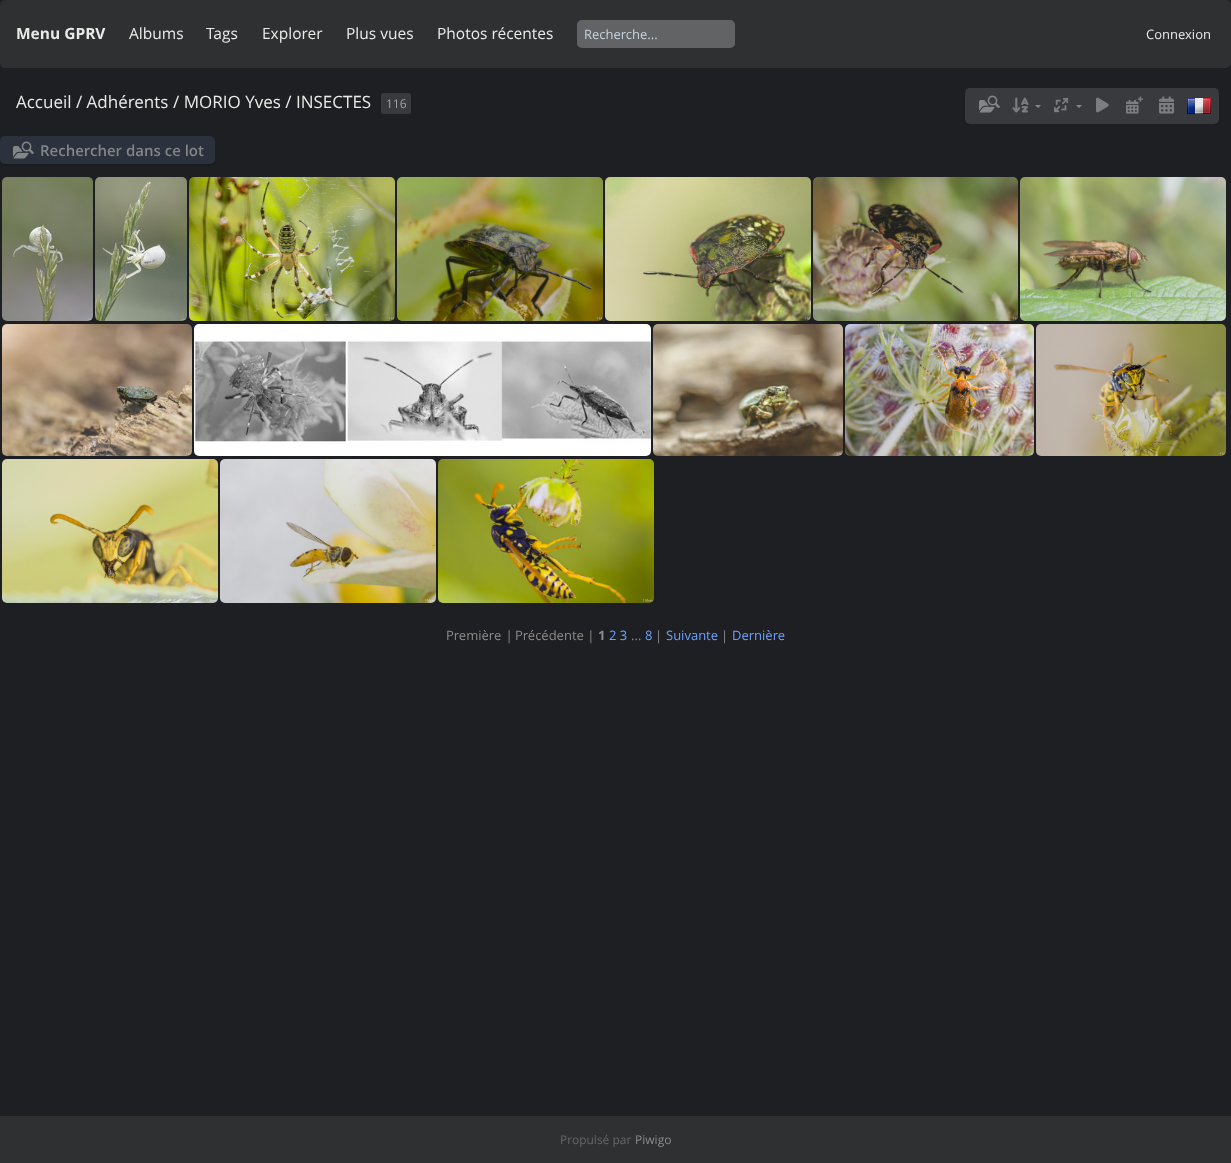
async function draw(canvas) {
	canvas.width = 1231;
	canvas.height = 1163;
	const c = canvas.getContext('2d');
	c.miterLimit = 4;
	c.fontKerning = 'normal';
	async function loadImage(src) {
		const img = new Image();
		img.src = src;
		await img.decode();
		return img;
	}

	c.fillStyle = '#1e1f23';
	c.fillRect(0, 0, 1231, 1163);
	c.fillStyle = '#2f3032';
	c.beginPath();
	c.roundRect(0, 0, 1231, 68, 5);
	c.fill();
	c.font = 'bold 15.5px Open Sans';
	c.fillStyle = '#eaeae9';
	c.fillText('Menu GPRV', 16, 39);
	c.font = '15.5px Open Sans';
	for (const [text, x, y] of [
		['Albums', 129, 39],
		['Tags', 206, 39],
		['Explorer', 262, 39],
		['Plus vues', 346, 39],
		['Photos récentes', 437, 39],
	]) {
		c.fillText(text, x, y);
	}
	c.fillStyle = '#616364';
	c.beginPath();
	c.roundRect(577, 20, 158, 28, 5);
	c.fill();
	c.font = '13px Open Sans';
	c.fillStyle = '#c7d3e1';
	c.fillText('Recherche...', 584, 39);
	c.fillStyle = '#eaeae9';
	c.fillText('Connexion', 1146, 39);
	c.font = '17px Open Sans';
	c.fillText('Accueil / Adhérents', 16, 108);
	c.fillText('/ MORIO Yves / INSECTES', 173, 108);
	c.fillStyle = '#393a3d';
	c.fillRect(386, 93, 20, 21);
	c.font = '12px Open Sans';
	c.fillStyle = '#a4a4a4';
	c.fillText('116', 386, 108);
	c.fillStyle = '#393a3d';
	c.beginPath();
	c.roundRect(381, 93, 5, 21, [2.5, 0, 0, 2.5]);
	c.fill();
	c.beginPath();
	c.roundRect(406, 93, 5, 21, [0, 2.5, 2.5, 0]);
	c.fill();
	c.beginPath();
	c.roundRect(965, 88, 254, 36, 5);
	c.fill();
	c.drawImage(await loadImage('img1.png'), 979, 95, 21, 18);
	c.drawImage(await loadImage('img2.png'), 1012, 97, 17, 16);
	c.fillStyle = '#848588';
	c.beginPath();
	c.moveTo(1035, 105);
	c.lineTo(1041, 105);
	c.lineTo(1038, 108);
	c.closePath();
	c.moveTo(1076, 105);
	c.lineTo(1082, 105);
	c.lineTo(1079, 108);
	c.closePath();
	c.fill();
	c.drawImage(await loadImage('img3.png'), 1126, 96, 17, 18);
	c.drawImage(await loadImage('img4.png'), 1159, 96, 15, 18);
	c.drawImage(await loadImage('img5.png'), 1054, 97, 15, 16);
	c.drawImage(await loadImage('img6.png'), 1096, 97, 13, 16);
	c.drawImage(await loadImage('img7.png'), 1187, 98, 24, 16);
	c.fillStyle = '#1a1b1e';
	c.beginPath();
	c.moveTo(0, 159);
	c.lineTo(0, 161);
	c.bezierCurveTo(0, 164, 2, 166, 5, 166);
	c.lineTo(210, 166);
	c.bezierCurveTo(213, 166, 215, 164, 215, 161);
	c.lineTo(215, 159);
	c.bezierCurveTo(215, 162, 213, 164, 210, 164);
	c.lineTo(5, 164);
	c.bezierCurveTo(2, 164, 0, 162, 0, 159);
	c.closePath();
	c.fill();
	c.fillStyle = '#2b313d';
	c.beginPath();
	c.roundRect(0, 136, 215, 28, 5);
	c.fill();
	c.drawImage(await loadImage('img8.png'), 13, 141, 21, 18);
	c.font = '600 15px Open Sans';
	c.fillStyle = '#848588';
	c.fillText('Rechercher dans ce lot', 40, 156);
	c.drawImage(await loadImage('img9.png'), 2, 177, 91, 144);
	c.drawImage(await loadImage('img10.png'), 95, 177, 92, 144);
	c.drawImage(await loadImage('img11.png'), 189, 177, 206, 144);
	c.drawImage(await loadImage('img12.png'), 397, 177, 206, 144);
	c.drawImage(await loadImage('img13.png'), 605, 177, 206, 144);
	c.drawImage(await loadImage('img14.png'), 813, 177, 205, 144);
	c.drawImage(await loadImage('img15.png'), 1020, 177, 206, 144);
	c.drawImage(await loadImage('img16.png'), 2, 324, 190, 132);
	c.drawImage(await loadImage('img17.png'), 194, 324, 457, 132);
	c.drawImage(await loadImage('img18.png'), 653, 324, 190, 132);
	c.drawImage(await loadImage('img19.png'), 845, 324, 189, 132);
	c.drawImage(await loadImage('img20.png'), 1036, 324, 190, 132);
	c.drawImage(await loadImage('img21.png'), 2, 459, 216, 144);
	c.drawImage(await loadImage('img22.png'), 220, 459, 216, 144);
	c.drawImage(await loadImage('img23.png'), 438, 459, 216, 144);
	c.wordSpacing = '1px';
	c.font = '13px Open Sans';
	c.fillStyle = '#8d8b8b';
	c.fillText('Première |', 446, 640);
	c.wordSpacing = '0px';
	c.fillText('Précédente |', 515, 640);
	c.font = 'bold 13px Open Sans';
	c.fillText('1', 598, 640);
	c.font = '13px Open Sans';
	c.fillStyle = '#6ba1ff';
	c.fillText('2 3', 609, 640);
	c.fillStyle = '#8d8b8b';
	c.fillText('...', 631, 640);
	c.fillStyle = '#6ba1ff';
	c.fillText('8', 645, 640);
	c.fillStyle = '#8d8b8b';
	c.fillText('|', 655, 640);
	c.fillStyle = '#6ba1ff';
	c.fillText('Suivante', 666, 640);
	c.fillStyle = '#8d8b8b';
	c.fillText('|', 721, 640);
	c.fillStyle = '#6ba1ff';
	c.fillText('Dernière', 732, 640);
	c.fillStyle = '#2f3032';
	c.fillRect(0, 1116, 1231, 47);
	c.font = '12px Open Sans';
	c.fillStyle = '#666';
	c.fillText('Propulsé par', 560, 1144);
	c.fillStyle = '#8d8b8b';
	c.fillText('Piwigo', 635, 1144);
}

draw(document.querySelector('canvas'));
